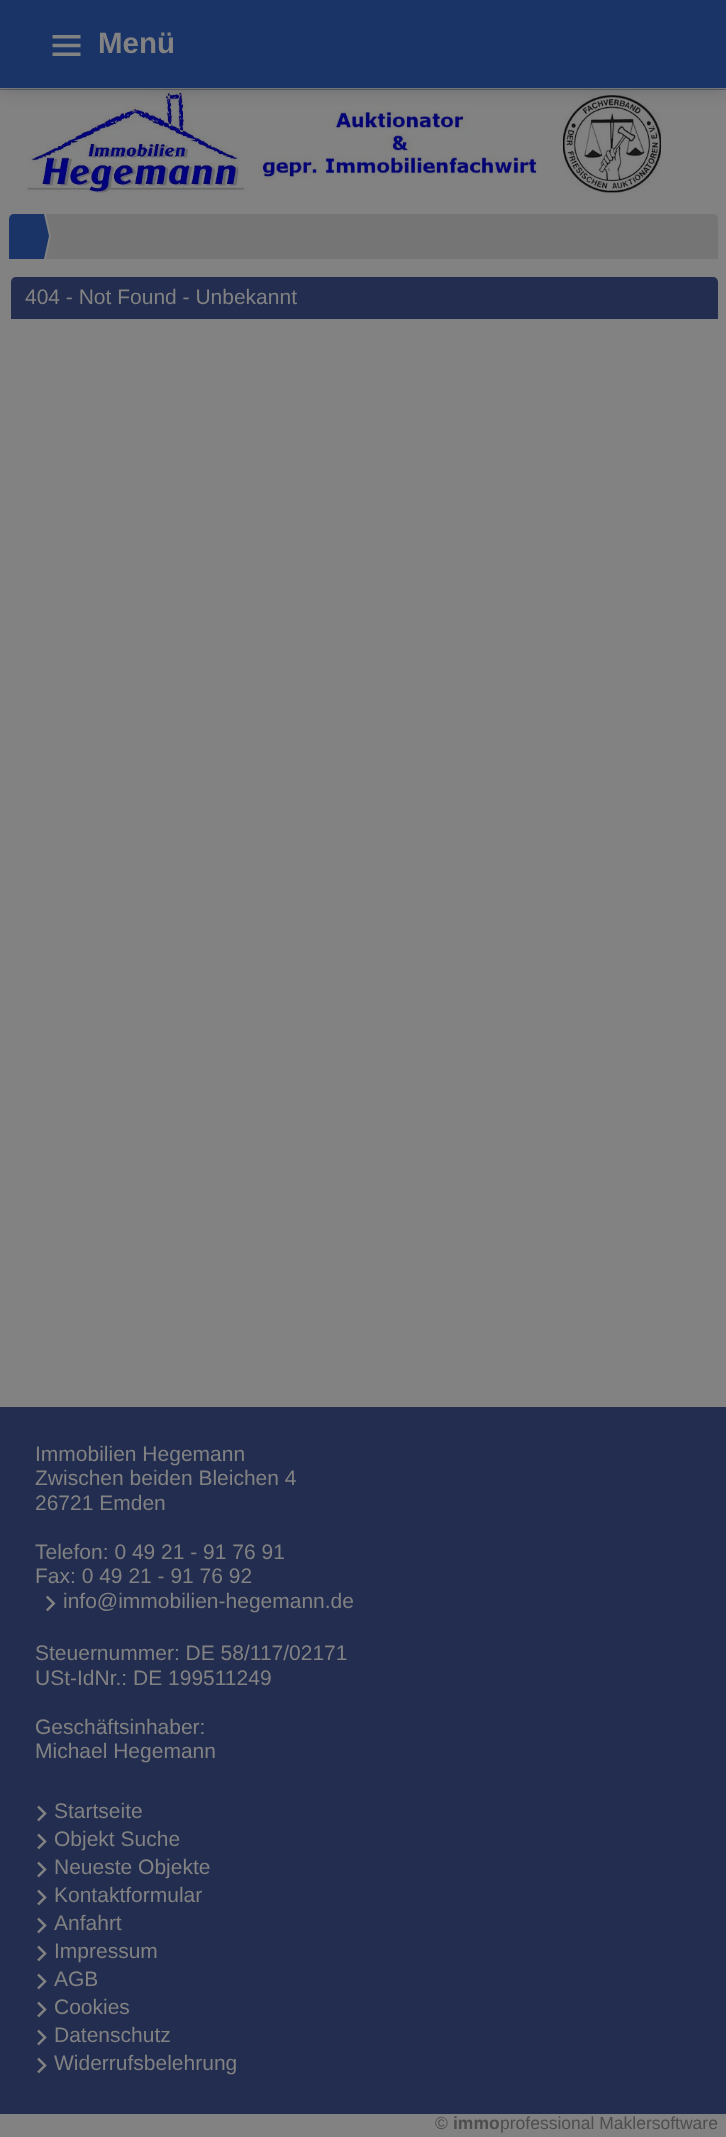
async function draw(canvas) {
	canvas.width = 726;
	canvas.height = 2137;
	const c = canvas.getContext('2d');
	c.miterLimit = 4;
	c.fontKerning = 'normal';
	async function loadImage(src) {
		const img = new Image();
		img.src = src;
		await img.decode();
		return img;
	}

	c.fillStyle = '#828282';
	c.fillRect(0, 0, 726, 2137);
	c.fillStyle = '#222d50';
	c.fillRect(0, 89, 726, 1);
	c.drawImage(await loadImage('img2.png'), 0, 89, 726, 107);
	c.fillStyle = '#00000033';
	c.filter = 'blur(9px)';
	c.beginPath();
	c.rect(0, 0, 726, 88);
	c.fill();
	c.filter = 'none';
	c.fillStyle = '#1a3468';
	c.fillRect(0, 0, 726, 88);
	c.drawImage(await loadImage('img1.png'), 52, 35, 29, 21);
	c.font = 'bold 29.5px Liberation Sans';
	c.fillStyle = '#828282';
	c.fillText('Menü', 98, 53);
	c.fillStyle = '#757575';
	c.beginPath();
	c.roundRect(9, 214, 709, 45, [5, 5, 0, 0]);
	c.fill();
	c.fillStyle = '#1a3468';
	c.beginPath();
	c.roundRect(9, 214, 19, 45, [5, 0, 0, 0]);
	c.fill();
	c.fillStyle = '#828282';
	c.beginPath();
	c.moveTo(46, 214);
	c.lineTo(51, 236);
	c.lineTo(46, 259);
	c.lineTo(30, 259);
	c.lineTo(30, 214);
	c.closePath();
	c.fill();
	c.fillStyle = '#1a3468';
	c.beginPath();
	c.moveTo(44, 214);
	c.lineTo(49, 236);
	c.lineTo(44, 259);
	c.lineTo(28, 259);
	c.lineTo(28, 214);
	c.closePath();
	c.fill();
	c.fillStyle = '#222d50';
	c.beginPath();
	c.roundRect(11, 277, 707, 42, [5, 5, 0, 0]);
	c.fill();
	c.font = '21px Liberation Sans';
	c.fillStyle = '#828282';
	c.fillText('404 - Not Found - Unbekannt', 25, 304);
	c.fillStyle = '#222d50';
	c.fillRect(0, 1407, 726, 707);
	c.fillStyle = '#828282';
	for (const [text, x, y] of [
		['Immobilien Hegemann', 35, 1461],
		['Zwischen beiden Bleichen 4', 35, 1485],
		['26721 Emden', 35, 1510],
		['Telefon: 0 49 21 - 91 76 91', 35, 1559],
		['Fax: 0 49 21 - 91 76 92', 35, 1583],
	]) {
		c.fillText(text, x, y);
	}
	c.drawImage(await loadImage('img3.png'), 46, 1595, 10, 17);
	for (const [text, x, y] of [
		['info@immobilien-hegemann.de', 63, 1608],
		['Steuernummer: DE 58/117/02171', 35, 1660],
		['USt-IdNr.: DE 199511249', 35, 1685],
		['Geschäftsinhaber:', 35, 1734],
		['Michael Hegemann', 35, 1758],
	]) {
		c.fillText(text, x, y);
	}
	c.drawImage(await loadImage('img4.png'), 37, 1805, 10, 17);
	c.fillText('Startseite', 54, 1818);
	c.drawImage(await loadImage('img4.png'), 37, 1833, 10, 17);
	c.fillText('Objekt Suche', 54, 1846);
	c.drawImage(await loadImage('img4.png'), 37, 1861, 10, 17);
	c.fillText('Neueste Objekte', 54, 1874);
	c.drawImage(await loadImage('img4.png'), 37, 1889, 10, 17);
	c.fillText('Kontaktformular', 54, 1902);
	c.drawImage(await loadImage('img4.png'), 37, 1917, 10, 17);
	c.fillText('Anfahrt', 54, 1930);
	c.drawImage(await loadImage('img4.png'), 37, 1945, 10, 17);
	c.fillText('Impressum', 54, 1958);
	c.drawImage(await loadImage('img4.png'), 37, 1973, 10, 17);
	c.fillText('AGB', 54, 1986);
	c.drawImage(await loadImage('img4.png'), 37, 2001, 10, 17);
	c.fillText('Cookies', 54, 2014);
	c.drawImage(await loadImage('img4.png'), 37, 2029, 10, 17);
	c.fillText('Datenschutz', 54, 2042);
	c.drawImage(await loadImage('img4.png'), 37, 2057, 10, 17);
	c.fillText('Widerrufsbelehrung', 54, 2070);
	c.font = '17.5px Liberation Sans';
	c.fillStyle = '#4e4e4e';
	c.fillText('©', 435, 2129);
	c.font = 'bold 17.5px Liberation Sans';
	c.fillText('immo', 453, 2129);
	c.font = '17.5px Liberation Sans';
	c.fillText('professional Maklersoftware', 500, 2129);
}

draw(document.querySelector('canvas'));
